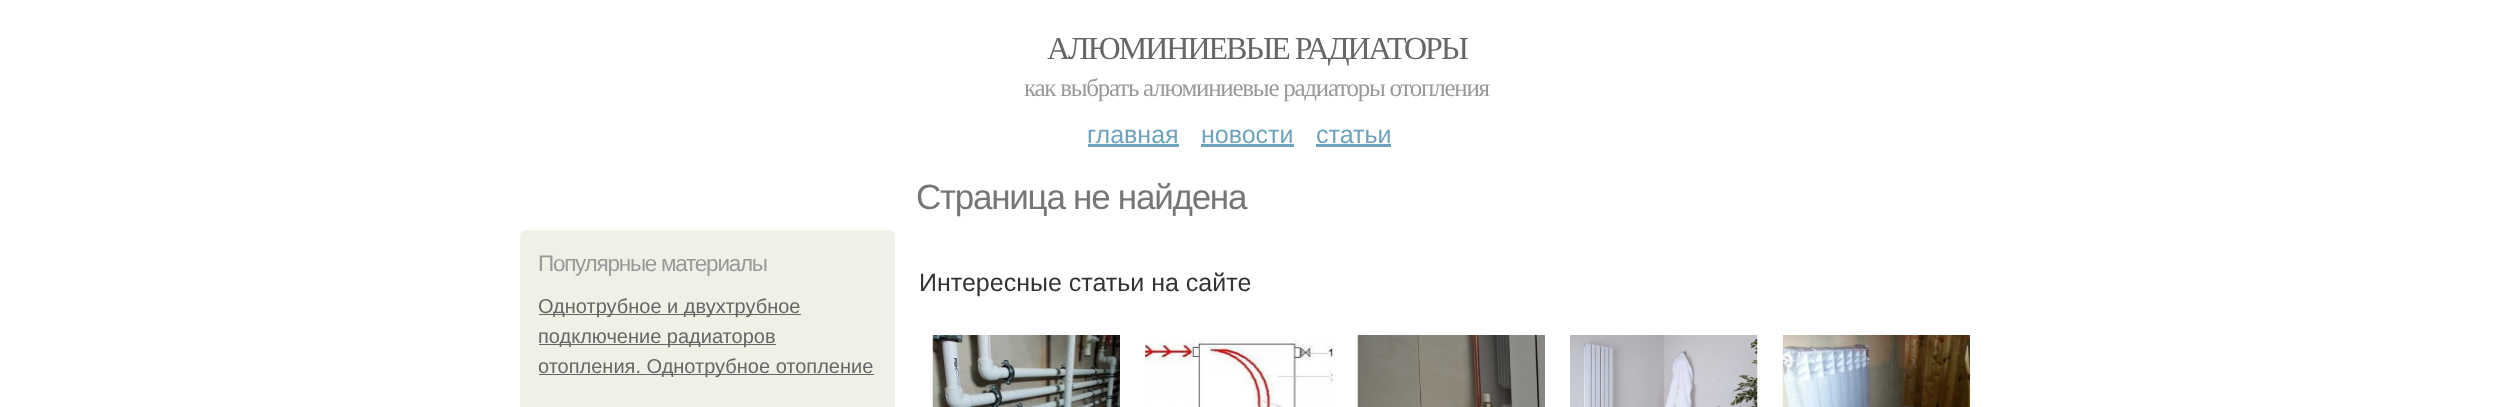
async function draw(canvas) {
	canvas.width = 2513;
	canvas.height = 407;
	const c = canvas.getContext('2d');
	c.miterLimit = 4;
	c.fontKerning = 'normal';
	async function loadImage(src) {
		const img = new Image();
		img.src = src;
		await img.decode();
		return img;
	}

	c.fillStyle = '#fff';
	c.fillRect(0, 0, 2513, 407);
	c.letterSpacing = '-2px';
	c.font = '32px Liberation Serif';
	c.fillStyle = '#666';
	c.fillText('АЛЮМИНИЕВЫЕ РАДИАТОРЫ', 1047, 59);
	c.letterSpacing = '-1.25px';
	c.font = '25px Liberation Serif';
	c.fillStyle = '#999';
	c.fillText('как выбрать алюминиевые радиаторы отопления', 1024, 96);
	c.letterSpacing = '0px';
	c.font = '25px Liberation Sans';
	c.fillStyle = '#6da3bd';
	c.fillText('главная', 1087, 143);
	c.fillRect(1088, 144, 91, 3);
	c.fillText('новости', 1201, 143);
	c.fillRect(1201, 144, 93, 3);
	c.fillText('статьи', 1316, 143);
	c.fillRect(1316, 144, 75, 3);
	c.letterSpacing = '-1.25px';
	c.font = '35px Liberation Sans';
	c.fillStyle = '#767676';
	c.fillText('Страница не найдена', 916, 209);
	c.fillStyle = '#f0f0e7';
	c.beginPath();
	c.roundRect(520, 230, 375, 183, 6);
	c.fill();
	c.font = '22.5px Liberation Sans';
	c.fillStyle = '#999';
	c.fillText('Популярные материалы', 538, 271);
	c.fillStyle = '#666';
	c.fillRect(539, 314, 262, 1);
	c.letterSpacing = '0px';
	c.font = '20px Liberation Sans';
	c.fillText('Однотрубное и двухтрубное', 538, 313);
	c.fillRect(539, 344, 237, 1);
	c.fillText('подключение радиаторов', 538, 343);
	c.fillRect(539, 374, 335, 1);
	c.fillText('отопления. Однотрубное отопление', 538, 373);
	c.font = '25px Liberation Sans';
	c.fillStyle = '#333';
	c.fillText('Интересные статьи на сайте', 919, 291);
	c.drawImage(await loadImage('img1.png'), 932, 335, 188, 72);
	c.drawImage(await loadImage('img2.png'), 1145, 340, 188, 67);
	c.drawImage(await loadImage('img3.png'), 1357, 335, 188, 72);
	c.drawImage(await loadImage('img4.png'), 1570, 335, 188, 72);
	c.drawImage(await loadImage('img5.png'), 1782, 335, 188, 72);
}

draw(document.querySelector('canvas'));
